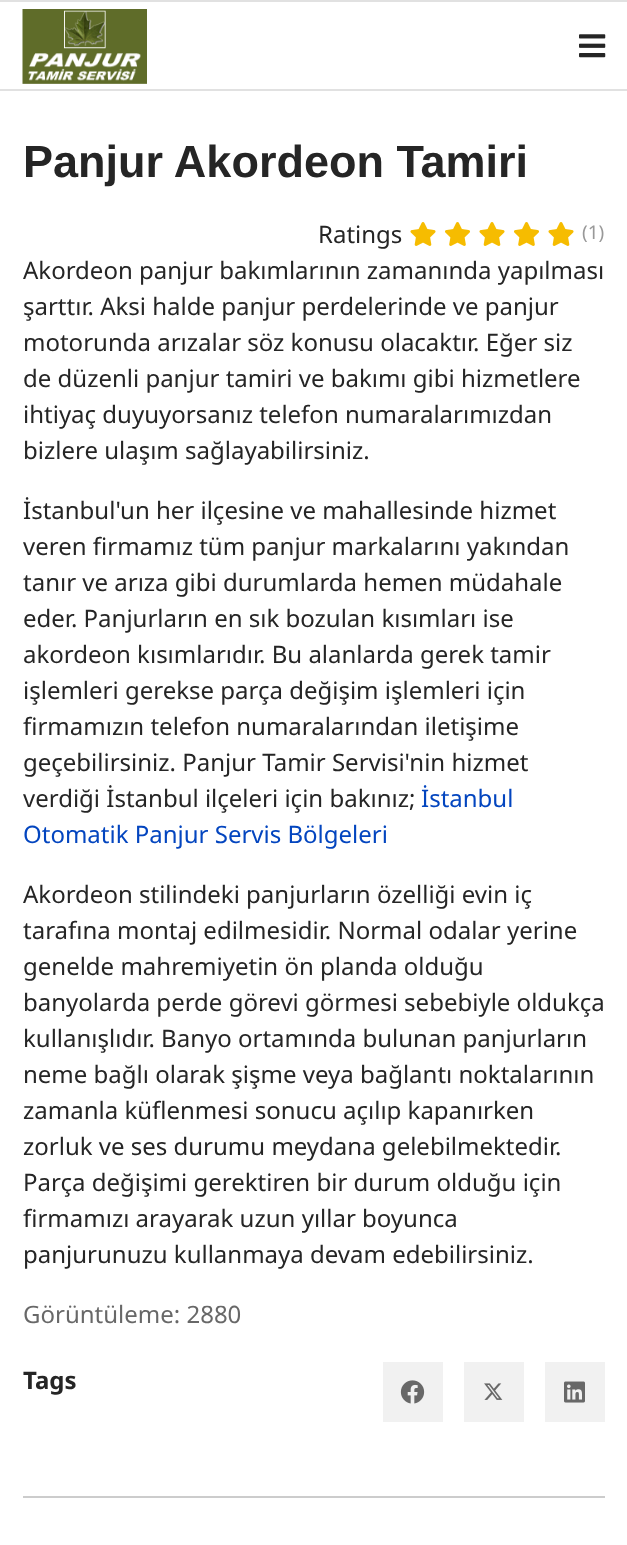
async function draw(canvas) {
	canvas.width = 627;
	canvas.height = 1545;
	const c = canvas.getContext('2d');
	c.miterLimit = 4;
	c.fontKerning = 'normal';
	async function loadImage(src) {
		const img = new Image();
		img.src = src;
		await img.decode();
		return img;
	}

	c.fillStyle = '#fff';
	c.fillRect(0, 0, 627, 1545);
	c.fillStyle = '#e1e1e1';
	c.fillRect(0, 0, 627, 2);
	c.fillRect(0, 89, 627, 2);
	c.drawImage(await loadImage('img1.png'), 22, 9, 125, 75);
	c.drawImage(await loadImage('img2.png'), 579, 34, 27, 24);
	c.font = 'bold 45px Liberation Sans';
	c.fillStyle = '#252525';
	c.fillText('Panjur Akordeon Tamiri', 23, 177);
	c.font = '24px Noto Sans';
	c.fillText('Ratings', 318, 243);
	c.drawImage(await loadImage('img3.png'), 410, 222, 26, 24);
	c.drawImage(await loadImage('img4.png'), 445, 222, 25, 24);
	c.drawImage(await loadImage('img3.png'), 479, 222, 26, 24);
	c.drawImage(await loadImage('img4.png'), 514, 222, 25, 24);
	c.drawImage(await loadImage('img3.png'), 548, 222, 26, 24);
	c.font = '19px Noto Sans';
	c.fillStyle = '#999';
	c.fillText('(1)', 582, 239);
	c.font = '24px Noto Sans';
	c.fillStyle = '#252525';
	for (const [text, x, y] of [
		['Akordeon panjur bakımlarının zamanında yapılması', 23, 279],
		['şarttır. Aksi halde panjur perdelerinde ve panjur', 23, 315],
		['motorunda arızalar söz konusu olacaktır. Eğer siz', 23, 351],
		['de düzenli panjur tamiri ve bakımı gibi hizmetlere', 23, 387],
		['ihtiyaç duyuyorsanız telefon numaralarımızdan', 23, 423],
		['bizlere ulaşım sağlayabilirsiniz.', 23, 459],
		['İstanbul\'un her ilçesine ve mahallesinde hizmet', 23, 519],
		['veren firmamız tüm panjur markalarını yakından', 23, 555],
		['tanır ve arıza gibi durumlarda hemen müdahale', 23, 591],
		['eder. Panjurların en sık bozulan kısımları ise', 23, 627],
		['akordeon kısımlarıdır. Bu alanlarda gerek tamir', 23, 663],
		['işlemleri gerekse parça değişim işlemleri için', 23, 699],
		['firmamızın telefon numaralarından iletişime', 23, 735],
		['geçebilirsiniz. Panjur Tamir Servisi\'nin hizmet', 23, 771],
		['verdiği İstanbul ilçeleri için bakınız;', 23, 807],
	]) {
		c.fillText(text, x, y);
	}
	c.fillStyle = '#0345bf';
	c.fillText('İstanbul', 421, 807);
	c.fillText('Otomatik Panjur Servis Bölgeleri', 23, 843);
	c.fillStyle = '#252525';
	for (const [text, x, y] of [
		['Akordeon stilindeki panjurların özelliği evin iç', 23, 903],
		['tarafına montaj edilmesidir. Normal odalar yerine', 23, 939],
		['genelde mahremiyetin ön planda olduğu', 23, 975],
		['banyolarda perde görevi görmesi sebebiyle oldukça', 23, 1011],
		['kullanışlıdır. Banyo ortamında bulunan panjurların', 23, 1047],
		['neme bağlı olarak şişme veya bağlantı noktalarının', 23, 1083],
		['zamanla küflenmesi sonucu açılıp kapanırken', 23, 1119],
		['zorluk ve ses durumu meydana gelebilmektedir.', 23, 1155],
		['Parça değişimi gerektiren bir durum olduğu için', 23, 1191],
		['firmamızı arayarak uzun yıllar boyunca', 23, 1227],
		['panjurunuzu kullanmaya devam edebilirsiniz.', 23, 1263],
	]) {
		c.fillText(text, x, y);
	}
	c.fillStyle = '#686868';
	c.fillText('Görüntüleme: 2880', 23, 1323);
	c.font = 'bold 24px Noto Sans';
	c.fillStyle = '#252525';
	c.fillText('Tags', 23, 1389);
	c.fillStyle = '#f1f1f1';
	c.fillRect(383, 1362, 60, 60);
	c.drawImage(await loadImage('img5.png'), 400, 1380, 25, 24);
	c.fillRect(464, 1362, 60, 60);
	c.drawImage(await loadImage('img6.png'), 484, 1383, 19, 17);
	c.fillRect(545, 1362, 60, 60);
	c.drawImage(await loadImage('img7.png'), 564, 1381, 21, 22);
	c.fillStyle = '#ccc';
	c.fillRect(23, 1496, 582, 2);
}

draw(document.querySelector('canvas'));
